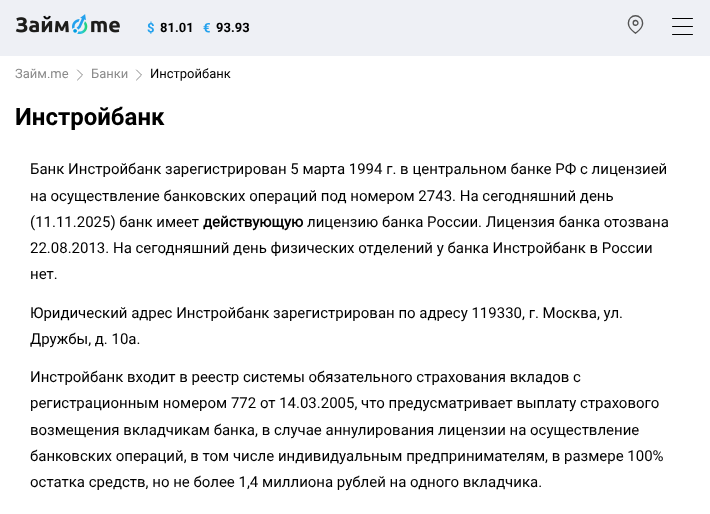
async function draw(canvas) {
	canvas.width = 710;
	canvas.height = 514;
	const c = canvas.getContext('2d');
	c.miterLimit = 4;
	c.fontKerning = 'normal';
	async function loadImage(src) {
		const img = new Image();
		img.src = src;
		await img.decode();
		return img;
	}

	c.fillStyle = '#fff';
	c.fillRect(0, 0, 710, 514);
	c.fillStyle = '#eef0f5';
	c.fillRect(0, 0, 710, 56);
	c.drawImage(await loadImage('img1.png'), 15, 14, 105, 20);
	c.drawImage(await loadImage('img2.png'), 147, 21, 7, 13);
	c.font = 'bold 13px Roboto';
	c.fillStyle = '#000';
	c.fillText('81.01', 160, 32);
	c.drawImage(await loadImage('img3.png'), 203, 23, 7, 10);
	c.fillText('93.93', 216, 32);
	c.drawImage(await loadImage('img4.png'), 627, 15, 17, 19);
	c.beginPath();
	c.roundRect(672, 18, 21, 1, 0.5);
	c.fill();
	c.beginPath();
	c.roundRect(672, 26, 21, 1, 0.5);
	c.fill();
	c.beginPath();
	c.roundRect(672, 34, 21, 1, 0.5);
	c.fill();
	c.font = '13px Roboto';
	c.fillStyle = '#8a8a8a';
	c.fillText('Займ.me', 15, 78);
	c.beginPath();
	c.moveTo(77.5, 80);
	c.lineTo(82.5, 75);
	c.lineTo(77.5, 70);
	c.strokeStyle = '#8a8a8a';
	c.lineCap = 'round';
	c.lineJoin = 'round';
	c.stroke();
	c.fillText('Банки', 91, 78);
	c.beginPath();
	c.moveTo(136.5, 80);
	c.lineTo(141.5, 75);
	c.lineTo(136.5, 70);
	c.stroke();
	c.fillStyle = '#000';
	c.fillText('Инстройбанк', 150, 78);
	c.font = 'bold 24px Roboto';
	c.fillText('Инстройбанк', 15, 125);
	c.font = '15px Roboto';
	for (const [text, x, y] of [
		['Банк Инстройбанк зарегистрирован 5 марта 1994 г. в центральном банке РФ с лицензией', 30, 174],
		['на осуществление банковских операций под номером 2743. На сегодняшний день', 30, 201],
		['(11.11.2025) банк имеет', 30, 227],
	]) {
		c.fillText(text, x, y);
	}
	c.font = 'bold 15px "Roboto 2"';
	c.fillText('действующую', 203, 227);
	c.font = '15px Roboto';
	for (const [text, x, y] of [
		['лицензию банка России. Лицензия банка отозвана', 307, 227],
		['22.08.2013. На сегодняшний день физических отделений у банка Инстройбанк в России', 30, 253],
		['нет.', 30, 279],
		['Юридический адрес Инстройбанк зарегистрирован по адресу 119330, г. Москва, ул.', 30, 318],
		['Дружбы, д. 10а.', 30, 344],
		['Инстройбанк входит в реестр системы обязательного страхования вкладов с', 30, 382],
		['регистрационным номером 772 от 14.03.2005, что предусматривает выплату страхового', 30, 408],
		['возмещения вкладчикам банка, в случае аннулирования лицензии на осуществление', 30, 435],
		['банковских операций, в том числе индивидуальным предпринимателям, в размере 100%', 30, 461],
		['остатка средств, но не более 1,4 миллиона рублей на одного вкладчика.', 30, 487],
	]) {
		c.fillText(text, x, y);
	}
}

draw(document.querySelector('canvas'));
